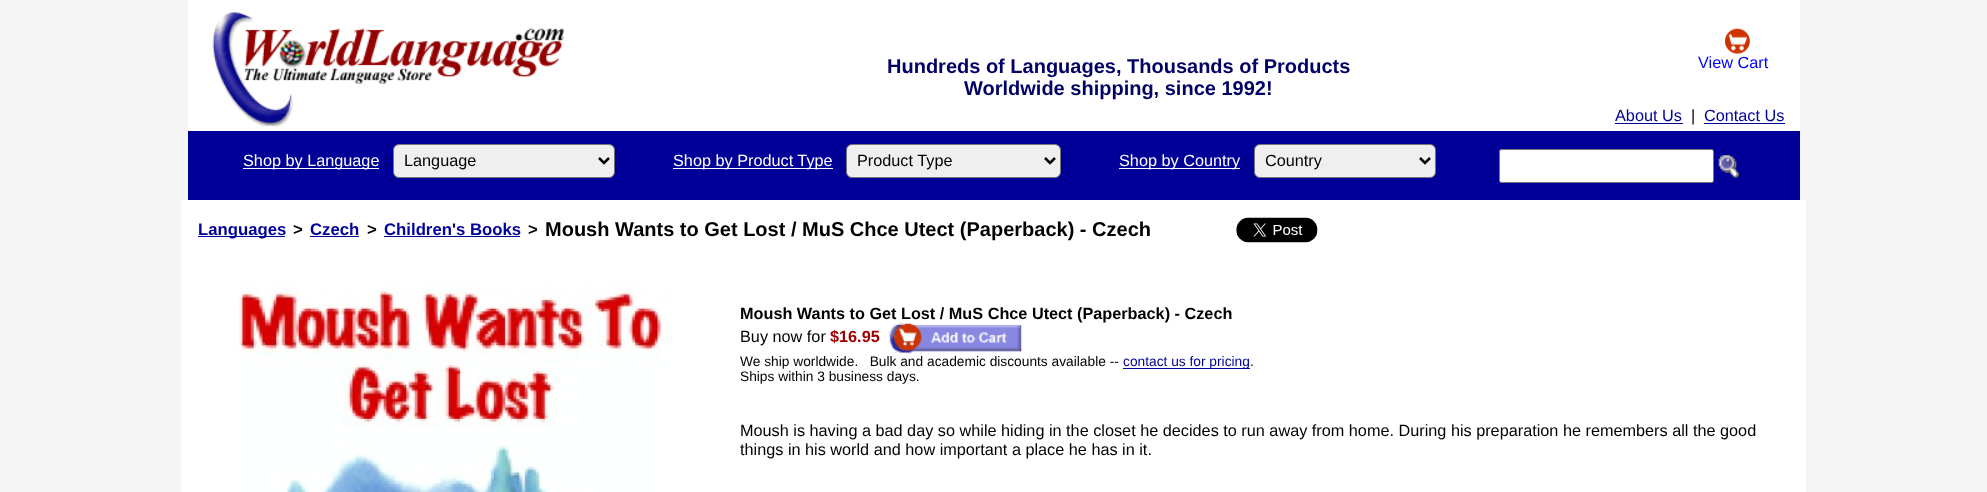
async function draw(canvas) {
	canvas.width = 1987;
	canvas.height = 492;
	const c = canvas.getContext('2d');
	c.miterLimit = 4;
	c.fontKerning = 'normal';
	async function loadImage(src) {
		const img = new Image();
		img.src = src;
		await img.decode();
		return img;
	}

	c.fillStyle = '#f5f5f5';
	c.fillRect(0, 0, 1987, 492);
	c.fillStyle = '#fff';
	c.fillRect(188, 0, 1612, 131);
	c.drawImage(await loadImage('img1.png'), 212, 12, 352, 115);
	c.font = 'bold 20px Liberation Sans';
	c.fillStyle = '#006';
	c.fillText('Hundreds of Languages, Thousands of Products', 887, 73);
	c.fillText('Worldwide shipping, since 1992!', 964, 95);
	c.drawImage(await loadImage('img2.png'), 1725, 28, 25, 26);
	c.font = '16.25px Liberation Sans';
	c.fillStyle = '#00f';
	c.fillText('View Cart', 1698, 68);
	c.fillStyle = '#00009c';
	c.fillText('About Us', 1615, 121);
	c.fillRect(1615, 123, 68, 1);
	c.fillStyle = '#000';
	c.fillText('|', 1691, 121);
	c.fillStyle = '#00009c';
	c.fillText('Contact Us', 1704, 121);
	for (const [x, y, w, h, color] of [
		[1704, 123, 81, 1, '#00009c'],
		[188, 131, 1612, 69, '#009'],
		[243, 168, 136, 1, '#fff'],
	]) {
		c.fillStyle = color;
		c.fillRect(x, y, w, h);
	}
	c.fillText('Shop by Language', 243, 166);
	c.fillStyle = '#000';
	c.fillText(':', 384, 166);
	c.fillStyle = '#efefef';
	c.beginPath();
	c.roundRect(393.5, 144.5, 221, 33, 5.5);
	c.fill();
	c.strokeStyle = '#767676';
	c.stroke();
	c.beginPath();
	c.moveTo(599, 158);
	c.lineTo(604, 163);
	c.lineTo(609, 158);
	c.strokeStyle = '#000';
	c.lineWidth = 2.5;
	c.stroke();
	c.fillStyle = '#000';
	c.fillText('Language', 404, 166);
	c.fillStyle = '#fff';
	c.fillRect(673, 168, 160, 1);
	c.fillText('Shop by Product Type', 673, 166);
	c.fillStyle = '#000';
	c.fillText(':', 837, 166);
	c.fillStyle = '#efefef';
	c.beginPath();
	c.roundRect(846.5, 144.5, 214, 33, 5.5);
	c.fill();
	c.strokeStyle = '#767676';
	c.lineWidth = 1;
	c.stroke();
	c.beginPath();
	c.moveTo(1045, 158);
	c.lineTo(1050, 163);
	c.lineTo(1055, 158);
	c.strokeStyle = '#000';
	c.lineWidth = 2.5;
	c.stroke();
	c.fillStyle = '#000';
	c.fillText('Product Type', 857, 166);
	c.fillStyle = '#fff';
	c.fillRect(1119, 168, 121, 1);
	c.fillText('Shop by Country', 1119, 166);
	c.fillStyle = '#000';
	c.fillText(':', 1245, 166);
	c.fillStyle = '#efefef';
	c.beginPath();
	c.roundRect(1254.5, 144.5, 181, 33, 5.5);
	c.fill();
	c.strokeStyle = '#767676';
	c.lineWidth = 1;
	c.stroke();
	c.beginPath();
	c.moveTo(1420, 158);
	c.lineTo(1425, 163);
	c.lineTo(1430, 158);
	c.strokeStyle = '#000';
	c.lineWidth = 2.5;
	c.stroke();
	c.fillStyle = '#000';
	c.fillText('Country', 1265, 166);
	c.fillStyle = '#fff';
	c.beginPath();
	c.roundRect(1499.5, 149.5, 214, 33, 2);
	c.fill();
	c.strokeStyle = '#767676';
	c.lineWidth = 1;
	c.stroke();
	c.drawImage(await loadImage('img3.png'), 1718, 155, 21, 23);
	c.fillRect(181, 200, 1625, 292);
	c.fillStyle = '#00009c';
	c.fillRect(198, 236, 87, 1);
	c.font = 'bold 16.75px Liberation Sans';
	c.fillText('Languages', 198, 235);
	c.fillStyle = '#000';
	c.fillText('>', 293, 235);
	c.fillStyle = '#00009c';
	c.fillText('Czech', 310, 235);
	c.fillRect(310, 236, 49, 1);
	c.fillStyle = '#000';
	c.fillText('>', 367, 235);
	c.fillStyle = '#00009c';
	c.fillText('Children\'s Books', 384, 235);
	c.fillRect(384, 236, 136, 1);
	c.fillStyle = '#000';
	c.fillText('>', 528, 235);
	c.font = 'bold 20px Liberation Sans';
	c.fillText('Moush Wants to Get Lost / MuS Chce Utect (Paperback) - Czech', 545, 236);
	c.drawImage(await loadImage('img4.png'), 1236, 217, 82, 26);
	c.drawImage(await loadImage('img5.png'), 239, 286, 431, 206);
	c.font = 'bold 16.25px Liberation Sans';
	c.fillText('Moush Wants to Get Lost / MuS Chce Utect (Paperback) - Czech', 740, 319);
	c.font = '16.25px Liberation Sans';
	c.fillText('Buy now for', 740, 342);
	c.font = 'bold 16.25px Liberation Sans';
	c.fillStyle = '#a00000';
	c.fillText('$16.95', 830, 342);
	c.drawImage(await loadImage('img6.png'), 888, 322, 134, 32);
	c.font = '13.75px Liberation Sans';
	c.fillStyle = '#000';
	c.fillText('We ship worldwide.   Bulk and academic discounts available --', 740, 366);
	c.fillStyle = '#00009c';
	c.fillRect(1123, 368, 127, 1);
	c.fillText('contact us for pricing', 1123, 366);
	c.fillStyle = '#000';
	c.fillText('.', 1250, 366);
	c.fillText('Ships within 3 business days.', 740, 381);
	c.font = '16.25px Liberation Sans';
	c.fillText('Moush is having a bad day so while hiding in the closet he decides to run away from home. During his preparation he remembers all the good', 740, 436);
	c.fillText('things in his world and how important a place he has in it.', 740, 455);
}

draw(document.querySelector('canvas'));
